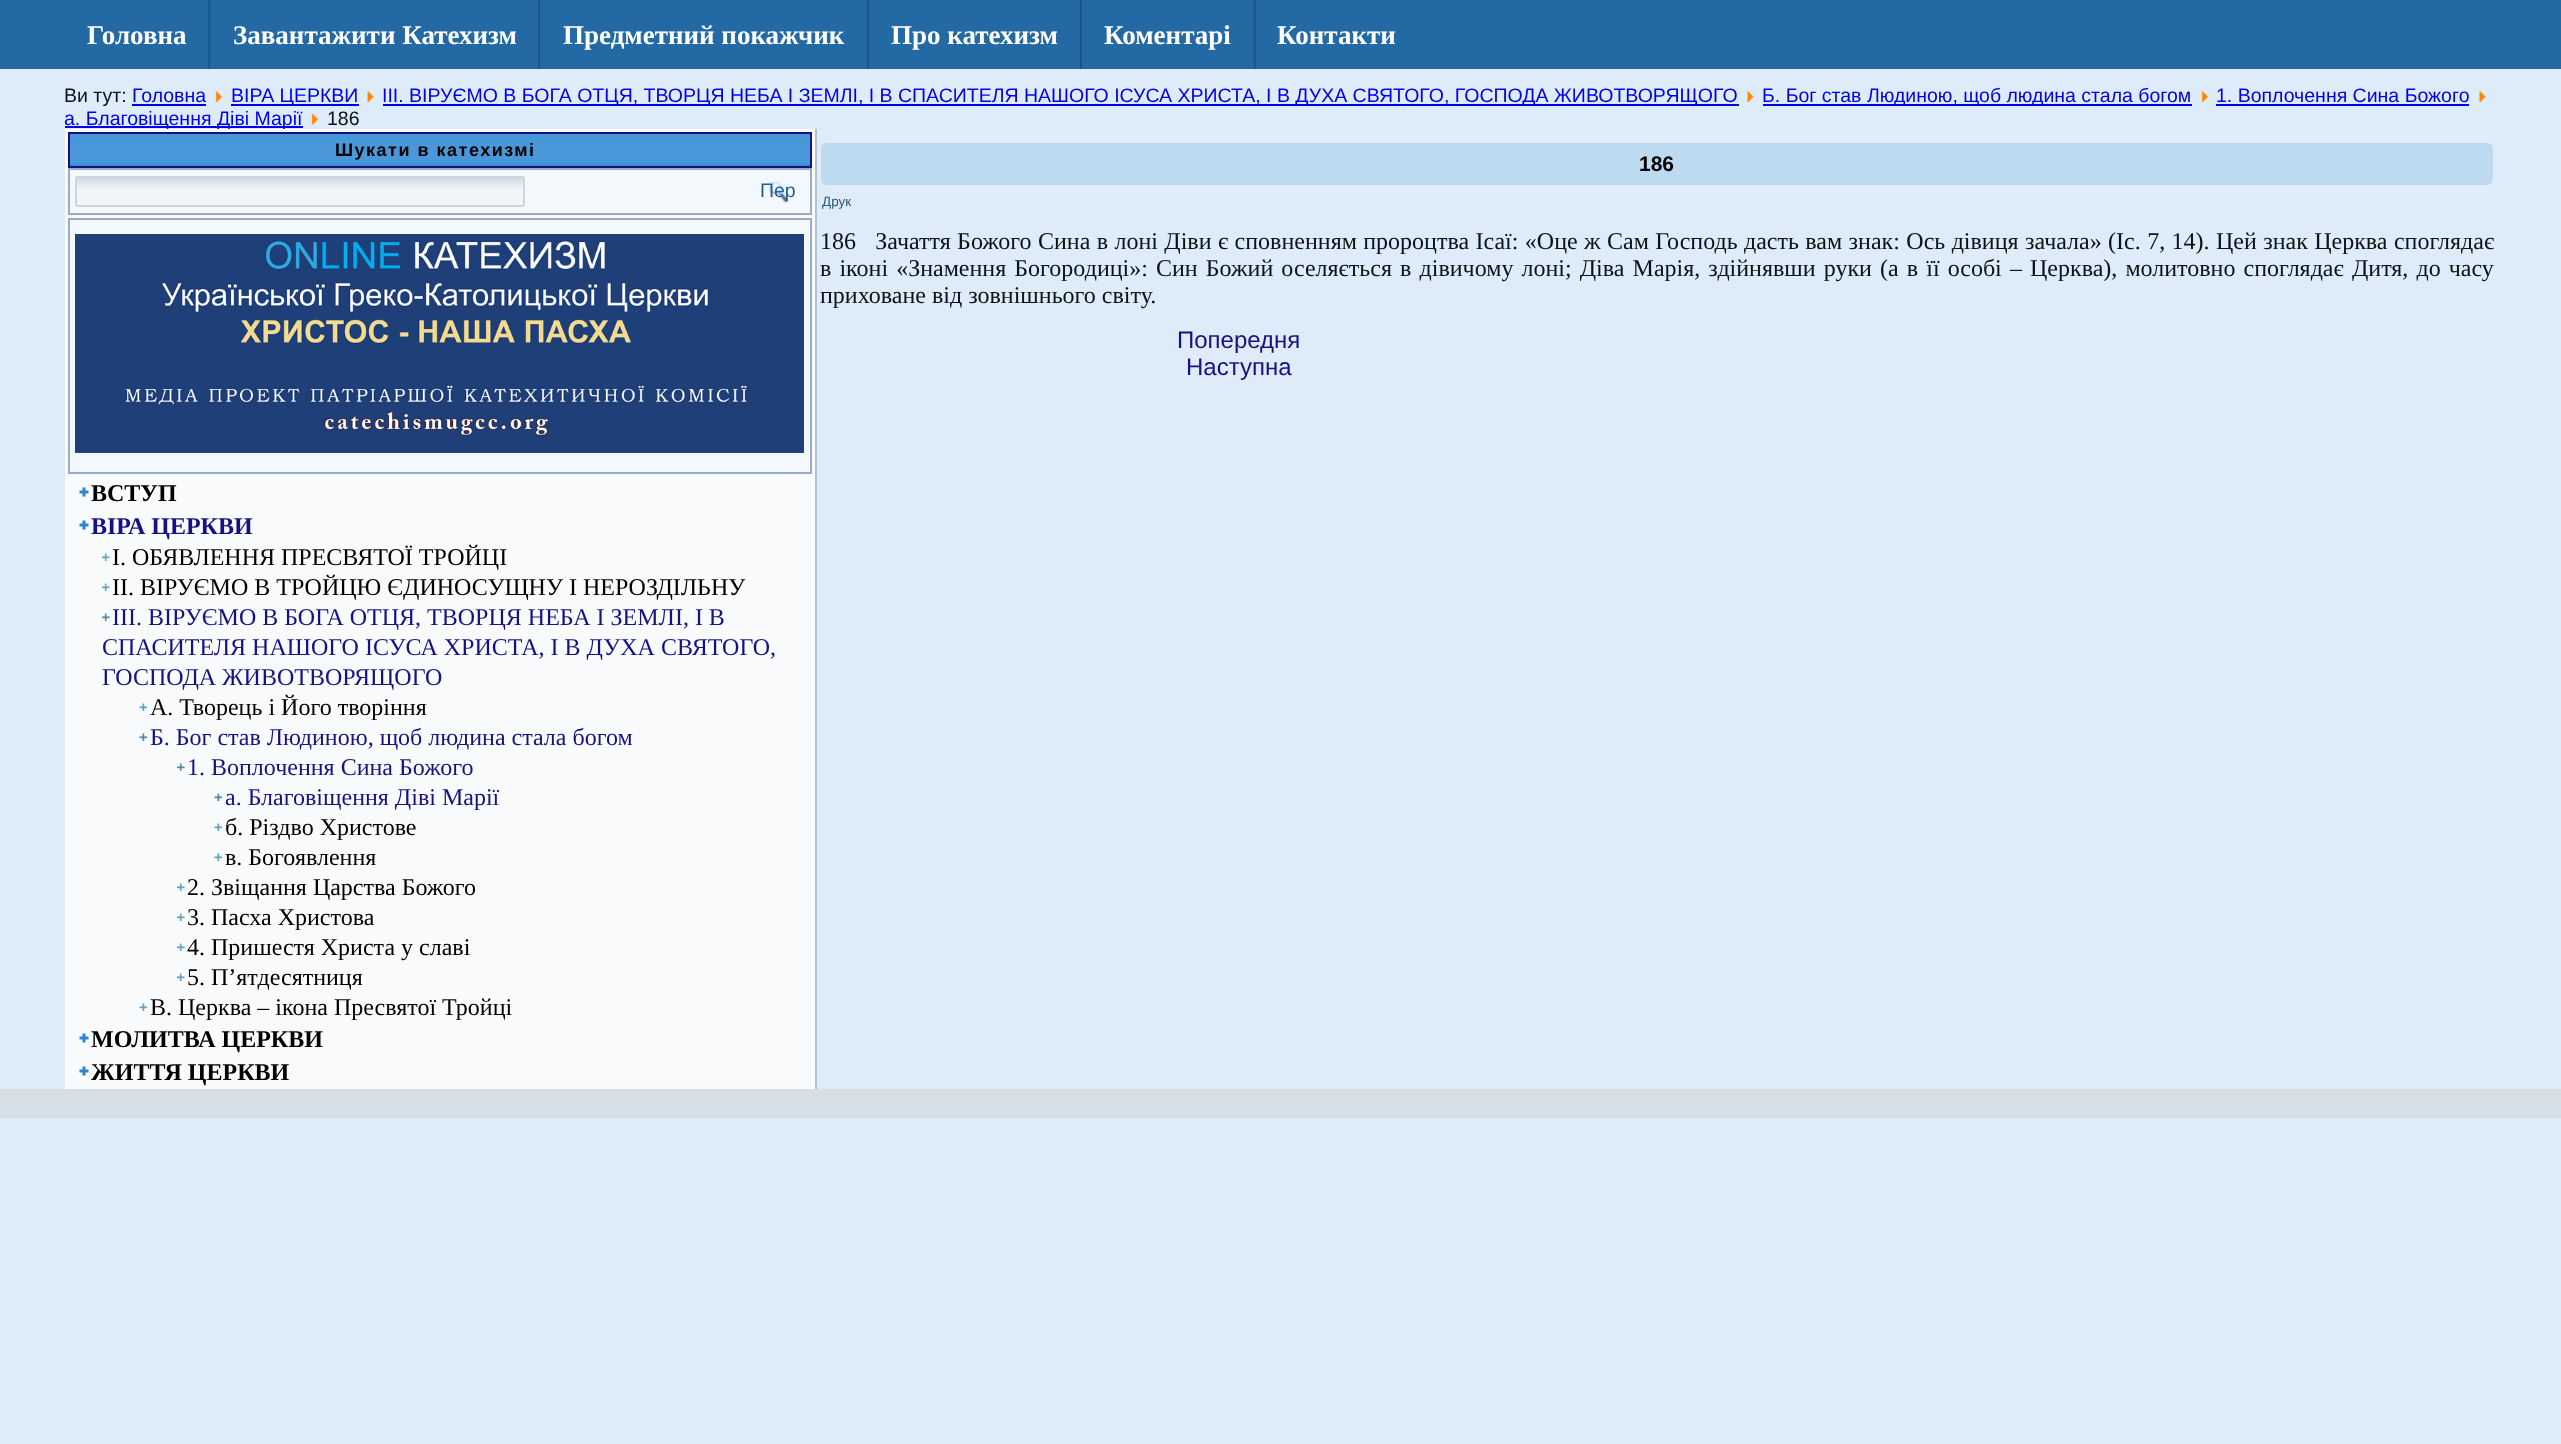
async function draw(canvas) {
	canvas.width = 2561;
	canvas.height = 1444;
	const c = canvas.getContext('2d');
	c.miterLimit = 4;
	c.fontKerning = 'normal';
	async function loadImage(src) {
		const img = new Image();
		img.src = src;
		await img.decode();
		return img;
	}
	let gradient;

	c.fillStyle = '#ddecf8';
	c.fillRect(0, 0, 2561, 1444);
	c.fillStyle = '#236aa4';
	c.fillRect(0, 0, 2561, 69);
	c.font = 'bold 27px Liberation Serif';
	c.fillStyle = '#fff';
	c.fillText('Головна', 87, 44);
	c.drawImage(await loadImage('img1.png'), 208, 0, 2, 69);
	c.fillText('Завантажити Катехизм', 233, 44);
	c.drawImage(await loadImage('img1.png'), 538, 0, 2, 69);
	c.fillText('Предметний покажчик', 563, 44);
	c.drawImage(await loadImage('img2.png'), 867, 0, 2, 69);
	c.fillText('Про катехизм', 891, 44);
	c.drawImage(await loadImage('img2.png'), 1080, 0, 2, 69);
	c.fillText('Коментарі', 1104, 44);
	c.drawImage(await loadImage('img2.png'), 1254, 0, 2, 69);
	c.fillText('Контакти', 1277, 44);
	c.font = '19.5px Liberation Sans';
	c.fillStyle = '#0d1216';
	c.fillText('Ви тут:', 64, 102);
	c.fillStyle = '#00e';
	c.fillText('Головна', 132, 102);
	c.fillRect(132, 104, 74, 2);
	c.drawImage(await loadImage('img3.png'), 215, 91, 8, 11);
	c.fillRect(231, 104, 128, 2);
	c.fillText('ВІРА ЦЕРКВИ', 231, 102);
	c.drawImage(await loadImage('img4.png'), 367, 91, 7, 11);
	c.fillRect(383, 104, 1356, 2);
	c.fillText('ІІІ. ВІРУЄМО В БОГА ОТЦЯ, ТВОРЦЯ НЕБА І ЗЕМЛІ, І В СПАСИТЕЛЯ НАШОГО ІСУСА ХРИСТА, І В ДУХА СВЯТОГО, ГОСПОДА ЖИВОТВОРЯЩОГО', 382, 102);
	c.drawImage(await loadImage('img5.png'), 1747, 91, 7, 11);
	c.fillRect(1763, 104, 429, 2);
	c.fillText('Б. Бог став Людиною, щоб людина стала богом', 1762, 102);
	c.drawImage(await loadImage('img6.png'), 2201, 91, 8, 11);
	c.fillText('1. Воплочення Сина Божого', 2216, 102);
	c.fillRect(2216, 104, 253, 2);
	c.drawImage(await loadImage('img5.png'), 2479, 91, 7, 11);
	c.fillRect(65, 126, 238, 2);
	c.fillText('а. Благовіщення Діві Марії', 64, 125);
	c.drawImage(await loadImage('img7.png'), 311, 113, 8, 12);
	c.fillStyle = '#0d1216';
	c.fillText('186', 327, 125);
	c.fillStyle = '#f9fafb';
	c.fillRect(65, 129, 750, 960);
	c.fillStyle = '#b2c2d1';
	c.fillRect(815, 129, 2, 960);
	gradient = c.createLinearGradient(440, 133, 440, 167);
	gradient.addColorStop(0, '#4696d8');
	gradient.addColorStop(0.4, '#4a98d9');
	gradient.addColorStop(0.85, '#4a98d9');
	gradient.addColorStop(1, '#2d88d2');
	c.fillStyle = gradient;
	c.fillRect(70, 134, 740, 32);
	c.strokeStyle = '#191183';
	c.lineWidth = 2;
	c.strokeRect(69, 133, 742, 34);
	c.letterSpacing = '1.5px';
	c.font = 'bold 18px Liberation Sans';
	c.fillStyle = '#000';
	c.fillText('Шукати в катехизмі', 335, 156);
	c.fillStyle = '#f3f8fc';
	c.beginPath();
	c.rect(69, 169, 742, 45);
	c.fill();
	c.strokeStyle = '#99adc2';
	c.stroke();
	gradient = c.createLinearGradient(300, 177, 300, 206);
	gradient.addColorStop(0, '#ccd6e0');
	gradient.addColorStop(0.4, '#eff2f5');
	gradient.addColorStop(0.5, '#f2f5f7');
	gradient.addColorStop(1, '#f2f5f7');
	c.fillStyle = gradient;
	c.fillRect(77, 178, 446, 27);
	c.beginPath();
	c.roundRect(76, 177, 448, 29, 2);
	c.strokeStyle = '#ccd6e0';
	c.stroke();
	c.drawImage(await loadImage('img8.png'), 768, 181, 21, 22);
	c.letterSpacing = '0px';
	c.font = '19.5px Liberation Sans';
	c.fillStyle = '#1f5f93';
	c.fillText('Пер', 760, 197);
	c.fillStyle = '#f3f8fc';
	c.beginPath();
	c.rect(69, 219, 742, 254);
	c.fill();
	c.strokeStyle = '#99adc2';
	c.stroke();
	c.drawImage(await loadImage('img9.png'), 75, 234, 729, 219);
	c.drawImage(await loadImage('img10.png'), 79, 487, 10, 10);
	c.font = 'bold 24px Liberation Serif';
	c.fillStyle = '#000';
	c.fillText('ВСТУП', 91, 501);
	c.drawImage(await loadImage('img10.png'), 79, 520, 10, 10);
	c.fillStyle = '#191183';
	c.fillText('ВІРА ЦЕРКВИ', 91, 534);
	c.drawImage(await loadImage('img11.png'), 102, 553, 8, 8);
	c.font = '24px Liberation Serif';
	c.fillStyle = '#000';
	c.fillText('I. ОБЯВЛЕННЯ ПРЕСВЯТОЇ ТРОЙЦІ', 112, 565);
	c.drawImage(await loadImage('img11.png'), 102, 583, 8, 8);
	c.fillText('ІІ. ВІРУЄМО В ТРОЙЦЮ ЄДИНОСУЩНУ І НЕРОЗДІЛЬНУ', 112, 595);
	c.drawImage(await loadImage('img12.png'), 102, 613, 8, 8);
	c.fillStyle = '#191183';
	for (const [text, x, y] of [
		['ІІІ. ВІРУЄМО В БОГА ОТЦЯ, ТВОРЦЯ НЕБА І ЗЕМЛІ, І В', 112, 625],
		['СПАСИТЕЛЯ НАШОГО ІСУСА ХРИСТА, І В ДУХА СВЯТОГО,', 102, 655],
		['ГОСПОДА ЖИВОТВОРЯЩОГО', 102, 685],
	]) {
		c.fillText(text, x, y);
	}
	c.drawImage(await loadImage('img13.png'), 139, 703, 8, 8);
	c.fillStyle = '#000';
	c.fillText('А. Творець і Його творіння', 150, 715);
	c.drawImage(await loadImage('img14.png'), 139, 733, 8, 8);
	c.fillStyle = '#191183';
	c.fillText('Б. Бог став Людиною, щоб людина стала богом', 150, 745);
	c.drawImage(await loadImage('img12.png'), 177, 763, 8, 8);
	c.fillText('1. Воплочення Сина Божого', 187, 775);
	c.drawImage(await loadImage('img14.png'), 214, 793, 8, 8);
	c.fillText('а. Благовіщення Діві Марії', 225, 805);
	c.drawImage(await loadImage('img13.png'), 214, 823, 8, 8);
	c.fillStyle = '#000';
	c.fillText('б. Різдво Христове', 225, 835);
	c.drawImage(await loadImage('img13.png'), 214, 853, 8, 8);
	c.fillText('в. Богоявлення', 225, 865);
	c.drawImage(await loadImage('img11.png'), 177, 883, 8, 8);
	c.fillText('2. Звіщання Царства Божого', 187, 895);
	c.drawImage(await loadImage('img11.png'), 177, 913, 8, 8);
	c.fillText('3. Пасха Христова', 187, 925);
	c.drawImage(await loadImage('img11.png'), 177, 943, 8, 8);
	c.fillText('4. Пришестя Христа у славі', 187, 955);
	c.drawImage(await loadImage('img11.png'), 177, 973, 8, 8);
	c.fillText('5. П’ятдесятниця', 187, 985);
	c.drawImage(await loadImage('img13.png'), 139, 1003, 8, 8);
	c.fillText('В. Церква – ікона Пресвятої Тройці', 150, 1015);
	c.drawImage(await loadImage('img10.png'), 79, 1033, 10, 10);
	c.font = 'bold 24px Liberation Serif';
	c.fillText('МОЛИТВА ЦЕРКВИ', 91, 1047);
	c.drawImage(await loadImage('img10.png'), 79, 1066, 10, 10);
	c.fillText('ЖИТТЯ ЦЕРКВИ', 91, 1080);
	c.fillStyle = '#bedaf1';
	c.beginPath();
	c.roundRect(821, 143, 1672, 42, 6);
	c.fill();
	c.font = 'bold 21px Liberation Sans';
	c.fillStyle = '#000';
	c.fillText('186', 1639, 171);
	c.font = '13.5px Liberation Sans';
	c.fillStyle = '#2b5973';
	c.fillText('Друк', 822, 206);
	c.wordSpacing = '0.4px';
	c.font = '24px Liberation Serif';
	c.fillStyle = '#0d1216';
	c.fillText('186   Зачаття Божого Сина в лоні Діви є сповненням пророцтва Ісаї: «Оце ж Сам Господь дасть вам знак: Ось дівиця зачала» (Іс. 7, 14). Цей знак Церква споглядає', 820, 249);
	c.wordSpacing = '2.1px';
	c.fillText('в іконі «Знамення Богородиці»: Син Божий оселяється в дівичому лоні; Діва Марія, здійнявши руки (а в її особі – Церква), молитовно споглядає Дитя, до часу', 820, 276);
	c.wordSpacing = '0px';
	c.fillText('приховане від зовнішнього світу.', 820, 303);
	c.font = '24px Liberation Sans';
	c.fillStyle = '#191183';
	c.fillText('Попередня', 1177, 348);
	c.fillText('Наступна', 1186, 375);
	c.fillStyle = '#d6dee6';
	c.fillRect(0, 1089, 2561, 29);
}

draw(document.querySelector('canvas'));
